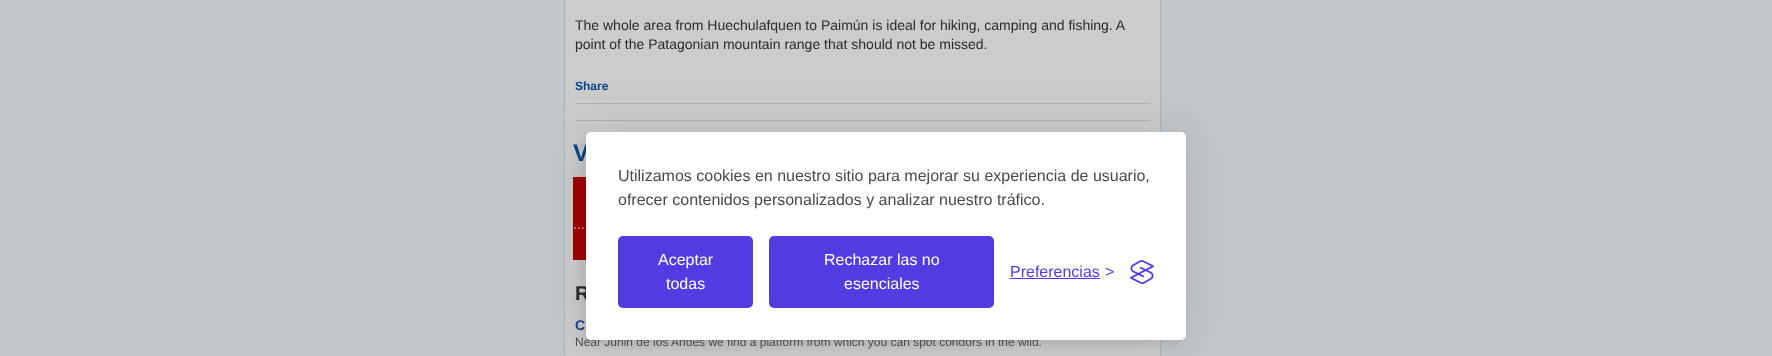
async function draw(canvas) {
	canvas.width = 1772;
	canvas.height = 356;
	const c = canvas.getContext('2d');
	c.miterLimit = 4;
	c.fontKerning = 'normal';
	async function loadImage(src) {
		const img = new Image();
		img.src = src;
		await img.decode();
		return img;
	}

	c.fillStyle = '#c2c7cc';
	c.fillRect(0, 0, 1772, 356);
	for (const [x, y, w, h, color] of [
		[565, 0, 595, 356, '#ccc'],
		[1160, 0, 1, 356, '#aeb4b8'],
		[564, 0, 1, 356, '#aeb4b8'],
	]) {
		c.fillStyle = color;
		c.fillRect(x, y, w, h);
	}
	c.font = '14px Liberation Sans';
	c.fillStyle = '#2a2a2a';
	c.fillText('The whole area from Huechulafquen to Paimún is ideal for hiking, camping and fishing. A', 575, 30);
	c.fillText('point of the Patagonian mountain range that should not be missed.', 575, 49);
	c.font = 'bold 12px Liberation Sans';
	c.fillStyle = '#08468a';
	c.fillText('Share', 575, 90);
	c.fillStyle = '#aeb4b8';
	c.fillRect(575, 103, 575, 1);
	c.fillRect(575, 120, 575, 1);
	c.font = 'bold 24px Liberation Sans';
	c.fillStyle = '#08468a';
	c.fillText('V', 573, 161);
	c.fillStyle = '#a30000';
	c.fillRect(573, 177, 13, 83);
	c.font = '14px Liberation Sans';
	c.fillStyle = '#ccc';
	c.fillText('...', 573, 229);
	c.font = 'bold 20px Liberation Sans';
	c.fillStyle = '#2a2a2a';
	c.fillText('R', 575, 300);
	c.font = 'bold 14px Liberation Sans';
	c.fillStyle = '#08468a';
	c.fillText('C', 575, 330);
	c.font = '12px Liberation Sans';
	c.fillStyle = '#525252';
	c.fillText('Near Junin de los Andes we find a platform from which you can spot condors in the wild.', 575, 346);
	c.fillStyle = '#0000001a';
	c.filter = 'blur(25px)';
	c.beginPath();
	c.roundRect(586, 132, 600, 208, 5);
	c.fill();
	c.filter = 'none';
	c.fillStyle = '#00000012';
	c.filter = 'blur(5px)';
	c.beginPath();
	c.roundRect(581, 137, 600, 208, 5);
	c.fill();
	c.filter = 'none';
	c.fillStyle = '#fff';
	c.beginPath();
	c.roundRect(586, 132, 600, 208, 5);
	c.fill();
	c.font = '16px Liberation Sans';
	c.fillStyle = '#4b494b';
	c.fillText('Utilizamos cookies en nuestro sitio para mejorar su experiencia de usuario,', 618, 181);
	c.fillText('ofrecer contenidos personalizados y analizar nuestro tráfico.', 618, 205);
	c.fillStyle = '#533be2';
	c.beginPath();
	c.roundRect(619, 237, 133, 70, 4);
	c.fill();
	c.strokeStyle = '#533be2';
	c.lineWidth = 2;
	c.stroke();
	c.fillStyle = '#fff';
	c.fillText('Aceptar', 658, 265);
	c.fillText('todas', 666, 289);
	c.fillStyle = '#533be2';
	c.beginPath();
	c.roundRect(770, 237, 223, 70, 4);
	c.fill();
	c.stroke();
	c.fillStyle = '#fff';
	c.fillText('Rechazar las no', 824, 265);
	c.fillText('esenciales', 844, 289);
	c.fillStyle = '#533be2';
	c.fillText('Preferencias', 1010, 277);
	c.fillRect(1010, 278, 90, 1);
	c.fillText('>', 1105, 277);
	c.drawImage(await loadImage('img1.png'), 1130, 260, 24, 24);
}

draw(document.querySelector('canvas'));
